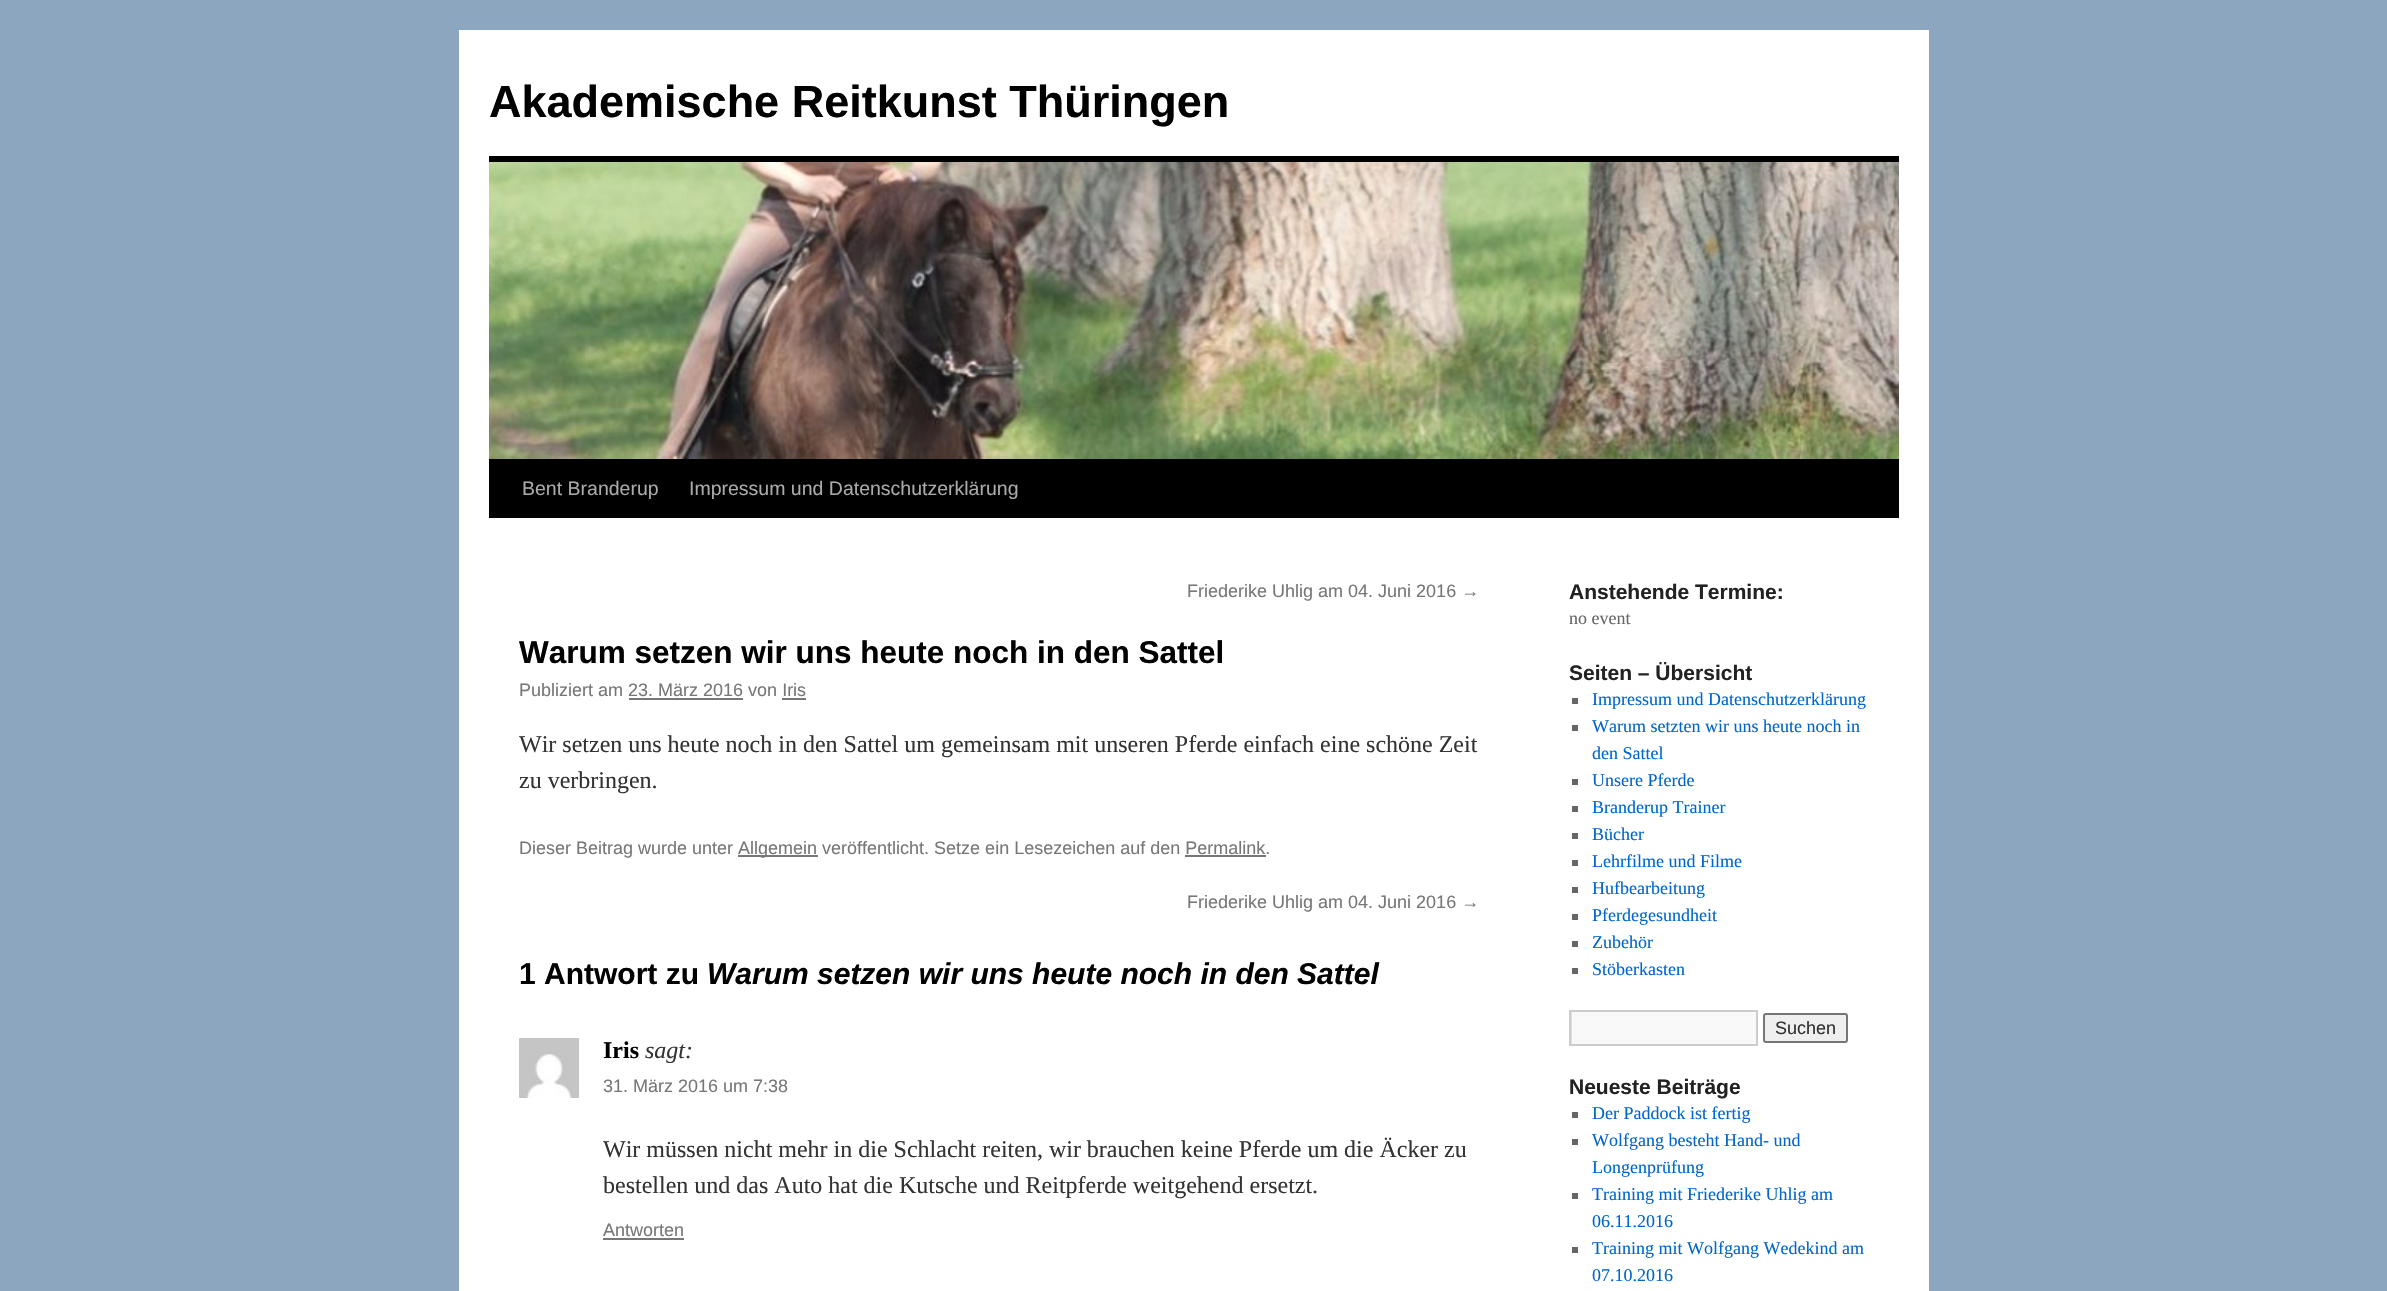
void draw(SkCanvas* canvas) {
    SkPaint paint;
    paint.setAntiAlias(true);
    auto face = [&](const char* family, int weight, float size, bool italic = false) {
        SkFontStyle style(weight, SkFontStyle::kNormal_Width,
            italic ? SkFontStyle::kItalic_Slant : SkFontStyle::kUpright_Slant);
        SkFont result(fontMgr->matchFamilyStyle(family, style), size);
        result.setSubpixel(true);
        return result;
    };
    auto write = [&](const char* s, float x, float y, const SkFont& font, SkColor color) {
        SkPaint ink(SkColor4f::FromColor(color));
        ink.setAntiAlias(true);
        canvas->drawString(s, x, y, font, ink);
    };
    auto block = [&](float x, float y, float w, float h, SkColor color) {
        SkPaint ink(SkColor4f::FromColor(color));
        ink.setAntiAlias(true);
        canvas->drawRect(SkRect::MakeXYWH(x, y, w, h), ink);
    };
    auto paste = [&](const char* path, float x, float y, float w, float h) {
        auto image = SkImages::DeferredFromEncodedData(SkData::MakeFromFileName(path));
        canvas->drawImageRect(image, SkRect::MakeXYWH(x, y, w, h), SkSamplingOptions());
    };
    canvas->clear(SkColorSetRGB(141, 166, 191));
    block(459, 30, 1470, 1261, SK_ColorWHITE);
    auto kFont1 = face("Liberation Sans", 700, 45);
    write("Akademische Reitkunst Thüringen", 489, 117, kFont1, SK_ColorBLACK);
    block(489, 156, 1410, 6, SK_ColorBLACK);
    block(489, 459, 1410, 59, SK_ColorBLACK);
    paste("pic1.png", 489, 162, 1410, 297);
    auto kFont2 = face("Liberation Sans", 400, 19.5f);
    write("Bent Branderup", 522, 495, kFont2, SkColorSetRGB(170, 170, 170));
    write("Impressum und Datenschutzerklärung", 689, 495, kFont2, SkColorSetRGB(170, 170, 170));
    auto kFont3 = face("Liberation Sans", 400, 18);
    write("Friederike Uhlig am 04. Juni 2016 →", 1187, 597, kFont3, SkColorSetRGB(119, 119, 119));
    auto kFont4 = face("Liberation Sans", 700, 31.5f);
    write("Warum setzen wir uns heute noch in den Sattel", 519, 663, kFont4, SK_ColorBLACK);
    write("Publiziert am 23. März 2016 von Iris", 519, 696, kFont3, SkColorSetRGB(119, 119, 119));
    block(629, 698, 114, 2, SkColorSetRGB(119, 119, 119));
    block(782, 698, 24, 2, SkColorSetRGB(119, 119, 119));
    auto kFont5 = face("Liberation Serif", 400, 24);
    write("Wir setzen uns heute noch in den Sattel um gemeinsam mit unseren Pferde einfach eine schöne Zeit", 519, 752, kFont5, SkColorSetRGB(51, 51, 51));
    write("zu verbringen.", 519, 788, kFont5, SkColorSetRGB(51, 51, 51));
    write("Dieser Beitrag wurde unter", 519, 854, kFont3, SkColorSetRGB(119, 119, 119));
    block(738, 855, 80, 2, SkColorSetRGB(119, 119, 119));
    write("Allgemein veröffentlicht. Setze ein Lesezeichen auf den Permalink.", 738, 854, kFont3, SkColorSetRGB(119, 119, 119));
    block(1185, 855, 81, 2, SkColorSetRGB(119, 119, 119));
    write("Friederike Uhlig am 04. Juni 2016 →", 1187, 908, kFont3, SkColorSetRGB(119, 119, 119));
    auto kFont6 = face("Liberation Sans", 700, 30);
    write("1 Antwort zu", 519, 984, kFont6, SK_ColorBLACK);
    auto kFont7 = face("Liberation Sans", 700, 30, true);
    write("Warum setzen wir uns heute noch in den Sattel", 707, 984, kFont7, SK_ColorBLACK);
    paste("pic2.png", 519, 1038, 60, 60);
    auto kFont8 = face("Liberation Serif", 700, 24);
    write("Iris", 603, 1058, kFont8, SK_ColorBLACK);
    auto kFont9 = face("Liberation Serif", 400, 24, true);
    write("sagt:", 645, 1058, kFont9, SkColorSetRGB(51, 51, 51));
    write("31. März 2016 um 7:38", 603, 1092, kFont3, SkColorSetRGB(119, 119, 119));
    write("Wir müssen nicht mehr in die Schlacht reiten, wir brauchen keine Pferde um die Äcker zu", 603, 1157, kFont5, SkColorSetRGB(51, 51, 51));
    write("bestellen und das Auto hat die Kutsche und Reitpferde weitgehend ersetzt.", 603, 1193, kFont5, SkColorSetRGB(51, 51, 51));
    write("Antworten", 603, 1236, kFont3, SkColorSetRGB(119, 119, 119));
    block(603, 1238, 81, 2, SkColorSetRGB(119, 119, 119));
    auto kFont10 = face("Liberation Sans", 700, 21);
    write("Anstehende Termine:", 1569, 599, kFont10, SkColorSetRGB(34, 34, 34));
    auto kFont11 = face("Liberation Serif", 400, 18);
    write("no event", 1569, 624, kFont11, SkColorSetRGB(102, 102, 102));
    write("Seiten – Übersicht", 1569, 680, kFont10, SkColorSetRGB(34, 34, 34));
    block(1572, 698, 6, 6, SkColorSetRGB(102, 102, 102));
    write("Impressum und Datenschutzerklärung", 1592, 705, kFont11, SkColorSetRGB(0, 102, 204));
    block(1572, 725, 6, 6, SkColorSetRGB(102, 102, 102));
    write("Warum setzten wir uns heute noch in", 1592, 732, kFont11, SkColorSetRGB(0, 102, 204));
    write("den Sattel", 1592, 759, kFont11, SkColorSetRGB(0, 102, 204));
    block(1572, 779, 6, 6, SkColorSetRGB(102, 102, 102));
    write("Unsere Pferde", 1592, 786, kFont11, SkColorSetRGB(0, 102, 204));
    block(1572, 806, 6, 6, SkColorSetRGB(102, 102, 102));
    write("Branderup Trainer", 1592, 813, kFont11, SkColorSetRGB(0, 102, 204));
    block(1572, 833, 6, 6, SkColorSetRGB(102, 102, 102));
    write("Bücher", 1592, 840, kFont11, SkColorSetRGB(0, 102, 204));
    block(1572, 860, 6, 6, SkColorSetRGB(102, 102, 102));
    write("Lehrfilme und Filme", 1592, 867, kFont11, SkColorSetRGB(0, 102, 204));
    block(1572, 887, 6, 6, SkColorSetRGB(102, 102, 102));
    write("Hufbearbeitung", 1592, 894, kFont11, SkColorSetRGB(0, 102, 204));
    block(1572, 914, 6, 6, SkColorSetRGB(102, 102, 102));
    write("Pferdegesundheit", 1592, 921, kFont11, SkColorSetRGB(0, 102, 204));
    block(1572, 941, 6, 6, SkColorSetRGB(102, 102, 102));
    write("Zubehör", 1592, 948, kFont11, SkColorSetRGB(0, 102, 204));
    block(1572, 968, 6, 6, SkColorSetRGB(102, 102, 102));
    write("Stöberkasten", 1592, 975, kFont11, SkColorSetRGB(0, 102, 204));
    block(1572, 1012, 184, 32, SkColorSetRGB(249, 249, 249));
    canvas->save();
    canvas->clipRect(SkRect::MakeXYWH(1571, 1011, 186, 33));
    paint.setColor(SkColorSetRGB(224, 224, 224));
    canvas->drawPath(SkPathBuilder(SkPathFillType::kEvenOdd).moveTo(1422, 862).lineTo(1905, 862).lineTo(1905, 1192).lineTo(1422, 1192).close().moveTo(1572, 1012).lineTo(1758, 1012).lineTo(1758, 1046).lineTo(1572, 1046).close().detach(), paint);
    canvas->restore();
    paint.setStyle(SkPaint::kStroke_Style);
    paint.setStrokeWidth(2);
    paint.setColor(SkColorSetRGB(204, 204, 204));
    canvas->drawRect(SkRect::MakeXYWH(1570, 1011, 187, 34), paint);
    paint.setStyle(SkPaint::kFill_Style);
    paint.setColor(SkColorSetRGB(239, 239, 239));
    canvas->drawRoundRect(SkRect::MakeXYWH(1764, 1014, 83, 28), 2, 2, paint);
    paint.setStyle(SkPaint::kStroke_Style);
    paint.setColor(SkColorSetRGB(118, 118, 118));
    canvas->drawRoundRect(SkRect::MakeXYWH(1764, 1014, 83, 28), 2, 2, paint);
    write("Suchen", 1775, 1034, kFont3, SkColorSetRGB(51, 51, 51));
    write("Neueste Beiträge", 1569, 1094, kFont10, SkColorSetRGB(34, 34, 34));
    block(1572, 1112, 6, 6, SkColorSetRGB(102, 102, 102));
    write("Der Paddock ist fertig", 1592, 1119, kFont11, SkColorSetRGB(0, 102, 204));
    block(1572, 1139, 6, 6, SkColorSetRGB(102, 102, 102));
    write("Wolfgang besteht Hand- und", 1592, 1146, kFont11, SkColorSetRGB(0, 102, 204));
    write("Longenprüfung", 1592, 1173, kFont11, SkColorSetRGB(0, 102, 204));
    block(1572, 1193, 6, 6, SkColorSetRGB(102, 102, 102));
    write("Training mit Friederike Uhlig am", 1592, 1200, kFont11, SkColorSetRGB(0, 102, 204));
    write("06.11.2016", 1592, 1227, kFont11, SkColorSetRGB(0, 102, 204));
    block(1572, 1247, 6, 6, SkColorSetRGB(102, 102, 102));
    write("Training mit Wolfgang Wedekind am", 1592, 1254, kFont11, SkColorSetRGB(0, 102, 204));
    write("07.10.2016", 1592, 1281, kFont11, SkColorSetRGB(0, 102, 204));
}
